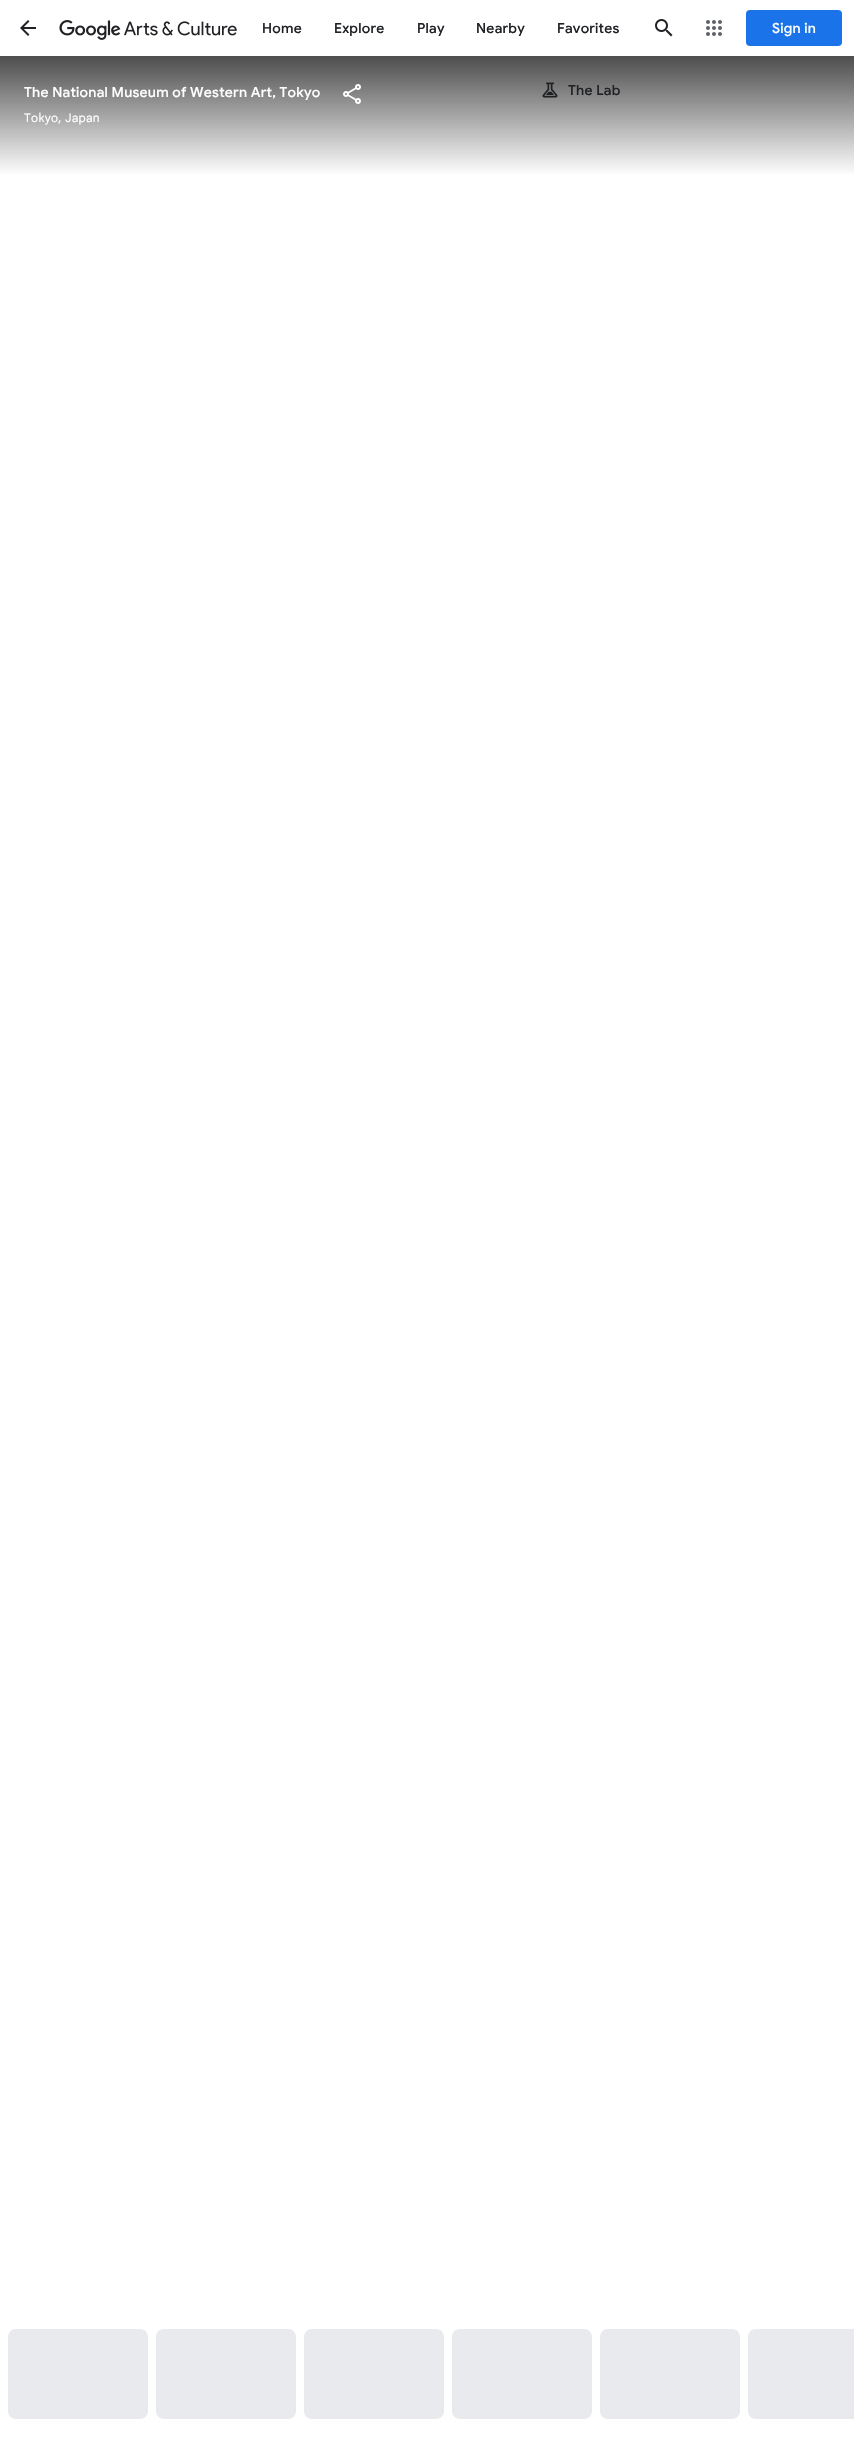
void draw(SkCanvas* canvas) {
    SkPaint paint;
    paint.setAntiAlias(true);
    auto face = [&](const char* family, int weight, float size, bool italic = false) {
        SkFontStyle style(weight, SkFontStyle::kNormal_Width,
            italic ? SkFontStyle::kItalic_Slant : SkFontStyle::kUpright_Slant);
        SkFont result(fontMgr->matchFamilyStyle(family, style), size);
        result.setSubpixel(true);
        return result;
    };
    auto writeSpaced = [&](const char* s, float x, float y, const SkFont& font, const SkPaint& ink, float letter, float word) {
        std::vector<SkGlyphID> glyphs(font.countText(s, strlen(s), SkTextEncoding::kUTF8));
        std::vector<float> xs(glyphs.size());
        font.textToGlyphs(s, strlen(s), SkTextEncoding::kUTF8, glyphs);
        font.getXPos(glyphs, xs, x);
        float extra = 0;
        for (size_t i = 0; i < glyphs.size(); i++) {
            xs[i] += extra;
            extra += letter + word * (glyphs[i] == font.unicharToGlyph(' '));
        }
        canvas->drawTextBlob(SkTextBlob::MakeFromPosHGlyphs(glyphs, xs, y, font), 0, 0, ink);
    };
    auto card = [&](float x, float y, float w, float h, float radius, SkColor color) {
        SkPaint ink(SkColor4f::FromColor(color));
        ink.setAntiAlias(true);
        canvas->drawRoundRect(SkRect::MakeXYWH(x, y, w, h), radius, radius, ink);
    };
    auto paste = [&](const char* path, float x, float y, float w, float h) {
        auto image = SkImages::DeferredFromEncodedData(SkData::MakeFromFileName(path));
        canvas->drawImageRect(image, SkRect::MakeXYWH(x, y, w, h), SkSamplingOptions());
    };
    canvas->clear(SK_ColorWHITE);
    paste("pic1.png", 20, 20, 16, 16);
    paste("pic2.png", 59, 20, 178, 20);
    auto kFont1 = face("Google Sans", 500, 14);
    paint.setColor(SkColorSetRGB(32, 33, 36));
    writeSpaced("Home", 262, 33, kFont1, paint, 0.25f, 0);
    writeSpaced("Explore", 334, 33, kFont1, paint, 0.25f, 0);
    writeSpaced("Play", 417, 33, kFont1, paint, 0.25f, 0);
    writeSpaced("Nearby", 476, 33, kFont1, paint, 0.25f, 0);
    writeSpaced("Favorites", 557, 33, kFont1, paint, 0.25f, 0);
    {
        const SkColor colors[] = {SkColorSetRGB(77, 77, 77), SK_ColorWHITE};
        const float stops[] = {0, 1};
        const SkPoint ends[] = {{427, 56}, {427, 176}};
        paint.setShader(SkGradientShader::MakeLinear(ends, colors, stops, 2, SkTileMode::kClamp));
        paint.setAlpha(255);
    }
    canvas->drawRect(SkRect::MakeXYWH(0, 56, 854, 118), paint);
    paste("pic3.png", 542, 82, 16, 16);
    paint.setShader(nullptr);
    paint.setColor(SkColorSetRGB(32, 33, 36));
    writeSpaced("The Lab", 568, 95, kFont1, paint, 0.25f, 0);
    paste("pic4.png", 655, 19, 18, 18);
    paste("pic5.png", 706, 20, 16, 16);
    card(746, 10, 96, 36, 4, SkColorSetRGB(26, 115, 232));
    paint.setColor(SK_ColorWHITE);
    writeSpaced("Sign in", 772, 33, kFont1, paint, 0.25f, 0);
    writeSpaced("The National Museum of Western Art, Tokyo", 24, 97, kFont1, paint, 0.25f, 0);
    paste("pic6.png", 343, 84, 18, 20);
    auto kFont2 = face("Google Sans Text", 400, 12);
    writeSpaced("Tokyo, Japan", 24, 122, kFont2, paint, 0.25f, 0);
    card(8, 2329, 140, 90, 8, SkColorSetRGB(232, 234, 237));
    card(156, 2329, 140, 90, 8, SkColorSetRGB(232, 234, 237));
    card(304, 2329, 140, 90, 8, SkColorSetRGB(232, 234, 237));
    card(452, 2329, 140, 90, 8, SkColorSetRGB(232, 234, 237));
    card(600, 2329, 140, 90, 8, SkColorSetRGB(232, 234, 237));
    paint.setColor(SkColorSetRGB(232, 234, 237));
    canvas->drawPath(SkPathBuilder().moveTo(756, 2329).lineTo(854, 2329).lineTo(854, 2419).lineTo(756, 2419).cubicTo(751.5f, 2419, 748, 2415.5f, 748, 2411).lineTo(748, 2337).cubicTo(748, 2332.5f, 751.5f, 2329, 756, 2329).close().detach(), paint);
}
